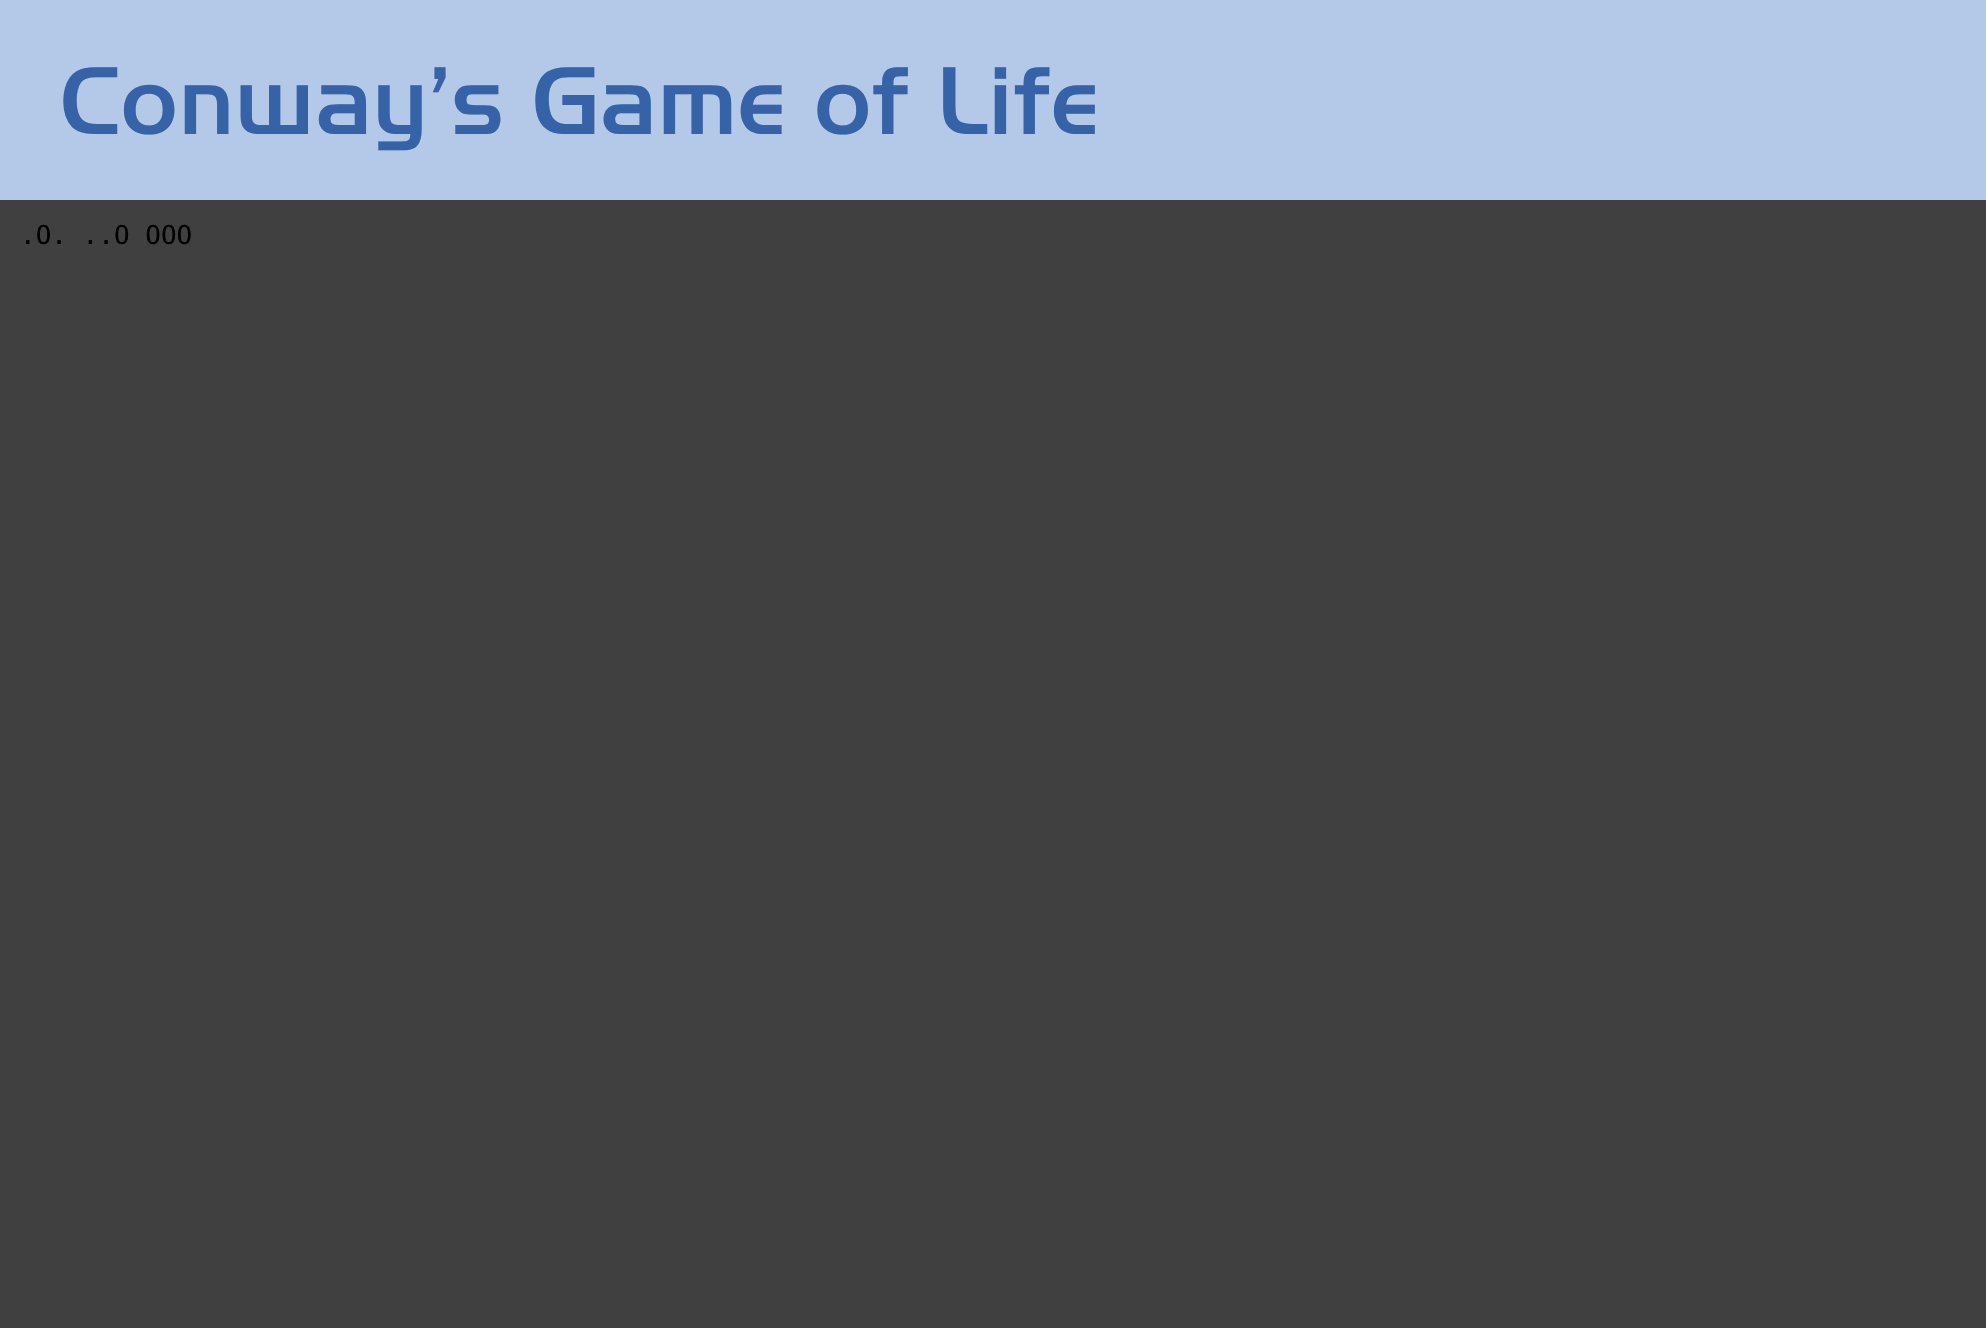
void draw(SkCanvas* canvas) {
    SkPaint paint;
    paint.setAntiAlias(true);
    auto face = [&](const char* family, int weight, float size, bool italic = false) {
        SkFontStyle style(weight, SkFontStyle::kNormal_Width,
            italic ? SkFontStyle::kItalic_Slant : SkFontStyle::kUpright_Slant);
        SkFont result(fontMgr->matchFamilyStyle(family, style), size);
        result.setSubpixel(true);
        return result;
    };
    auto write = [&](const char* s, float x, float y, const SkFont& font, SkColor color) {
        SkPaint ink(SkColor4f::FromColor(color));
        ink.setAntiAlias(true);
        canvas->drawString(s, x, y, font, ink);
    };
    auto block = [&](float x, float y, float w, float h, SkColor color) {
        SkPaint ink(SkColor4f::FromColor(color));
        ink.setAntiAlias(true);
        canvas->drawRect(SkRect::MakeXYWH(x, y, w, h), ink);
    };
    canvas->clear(SkColorSetRGB(180, 200, 231));
    auto kFont1 = face("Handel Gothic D", 500, 100);
    write("Conway’s", 60, 134, kFont1, SkColorSetRGB(54, 99, 168));
    write("Game", 532, 134, kFont1, SkColorSetRGB(54, 99, 168));
    write("of", 814, 134, kFont1, SkColorSetRGB(54, 99, 168));
    write("Life", 937, 134, kFont1, SkColorSetRGB(54, 99, 168));
    block(0, 200, 1986, 1128, SkColorSetRGB(64, 64, 64));
    auto kFont2 = face("DejaVu Sans Mono", 400, 26);
    write(".O. ..O OOO", 20, 244, kFont2, SK_ColorBLACK);
}
